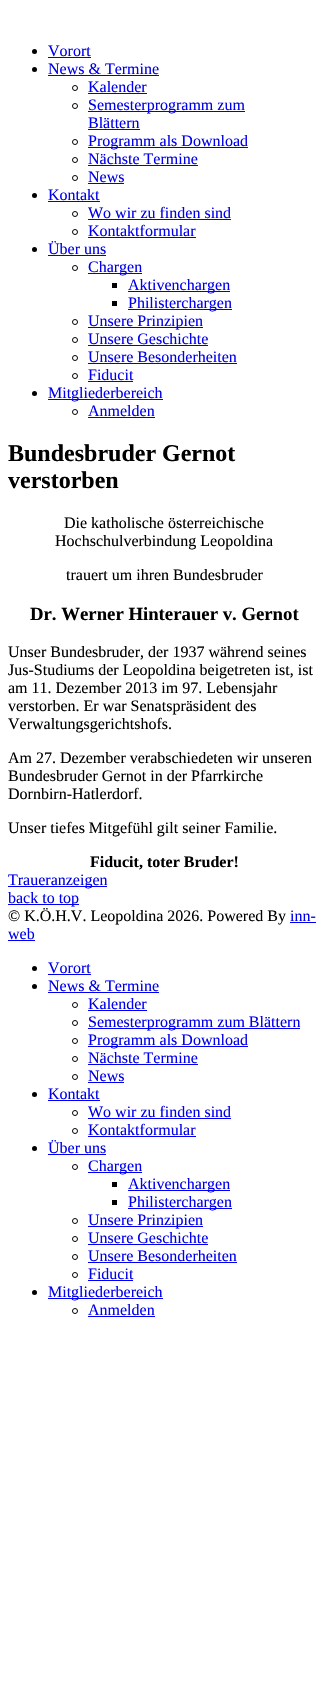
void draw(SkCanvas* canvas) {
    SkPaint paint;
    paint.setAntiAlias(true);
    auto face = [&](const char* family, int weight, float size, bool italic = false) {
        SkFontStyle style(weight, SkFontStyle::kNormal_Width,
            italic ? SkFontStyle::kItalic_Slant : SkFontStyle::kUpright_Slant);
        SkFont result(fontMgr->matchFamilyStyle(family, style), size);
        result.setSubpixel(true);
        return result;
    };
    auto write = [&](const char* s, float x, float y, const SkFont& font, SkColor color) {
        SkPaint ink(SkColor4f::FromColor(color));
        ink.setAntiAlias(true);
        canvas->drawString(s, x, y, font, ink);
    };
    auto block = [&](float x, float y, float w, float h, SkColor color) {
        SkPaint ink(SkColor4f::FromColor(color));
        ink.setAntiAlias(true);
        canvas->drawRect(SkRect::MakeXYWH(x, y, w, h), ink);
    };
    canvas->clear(SK_ColorWHITE);
    paint.setColor(SK_ColorBLACK);
    canvas->drawCircle(34.5f, 51.5f, 2.5f, paint);
    auto kFont1 = face("Liberation Serif", 400, 16);
    write("Vorort", 48, 56, kFont1, SkColorSetRGB(0, 0, 238));
    block(48, 57, 43, 1, SkColorSetRGB(0, 0, 238));
    canvas->drawCircle(34.5f, 69.5f, 2.5f, paint);
    write("News & Termine", 48, 74, kFont1, SkColorSetRGB(0, 0, 238));
    block(48, 75, 111, 1, SkColorSetRGB(0, 0, 238));
    paint.setStyle(SkPaint::kStroke_Style);
    paint.setStrokeWidth(1);
    canvas->drawCircle(75, 88, 2.5f, paint);
    write("Kalender", 88, 92, kFont1, SkColorSetRGB(0, 0, 238));
    block(88, 93, 59, 1, SkColorSetRGB(0, 0, 238));
    canvas->drawCircle(75, 106, 2.5f, paint);
    block(88, 111, 157, 1, SkColorSetRGB(0, 0, 238));
    write("Semesterprogramm zum", 88, 110, kFont1, SkColorSetRGB(0, 0, 238));
    write("Blättern", 88, 128, kFont1, SkColorSetRGB(0, 0, 238));
    block(88, 129, 52, 1, SkColorSetRGB(0, 0, 238));
    canvas->drawCircle(75, 142, 2.5f, paint);
    block(88, 147, 160, 1, SkColorSetRGB(0, 0, 238));
    write("Programm als Download", 88, 146, kFont1, SkColorSetRGB(0, 0, 238));
    canvas->drawCircle(75, 160, 2.5f, paint);
    write("Nächste Termine", 88, 164, kFont1, SkColorSetRGB(0, 0, 238));
    block(88, 165, 110, 1, SkColorSetRGB(0, 0, 238));
    canvas->drawCircle(75, 178, 2.5f, paint);
    write("News", 88, 182, kFont1, SkColorSetRGB(0, 0, 238));
    block(88, 183, 36, 1, SkColorSetRGB(0, 0, 238));
    paint.setStyle(SkPaint::kFill_Style);
    canvas->drawCircle(34.5f, 195.5f, 2.5f, paint);
    write("Kontakt", 48, 200, kFont1, SkColorSetRGB(0, 0, 238));
    block(48, 201, 52, 1, SkColorSetRGB(0, 0, 238));
    paint.setStyle(SkPaint::kStroke_Style);
    canvas->drawCircle(75, 214, 2.5f, paint);
    write("Wo wir zu finden sind", 88, 218, kFont1, SkColorSetRGB(0, 0, 238));
    block(88, 219, 143, 1, SkColorSetRGB(0, 0, 238));
    canvas->drawCircle(75, 232, 2.5f, paint);
    write("Kontaktformular", 88, 236, kFont1, SkColorSetRGB(0, 0, 238));
    block(88, 237, 108, 1, SkColorSetRGB(0, 0, 238));
    paint.setStyle(SkPaint::kFill_Style);
    canvas->drawCircle(34.5f, 249.5f, 2.5f, paint);
    write("Über uns", 48, 254, kFont1, SkColorSetRGB(0, 0, 238));
    block(48, 255, 58, 1, SkColorSetRGB(0, 0, 238));
    paint.setStyle(SkPaint::kStroke_Style);
    canvas->drawCircle(75, 268, 2.5f, paint);
    block(88, 273, 54, 1, SkColorSetRGB(0, 0, 238));
    write("Chargen", 88, 272, kFont1, SkColorSetRGB(0, 0, 238));
    block(112, 283, 5, 5, SK_ColorBLACK);
    block(128, 291, 102, 1, SkColorSetRGB(0, 0, 238));
    write("Aktivenchargen", 128, 290, kFont1, SkColorSetRGB(0, 0, 238));
    block(112, 301, 5, 5, SK_ColorBLACK);
    block(128, 309, 104, 1, SkColorSetRGB(0, 0, 238));
    write("Philisterchargen", 128, 308, kFont1, SkColorSetRGB(0, 0, 238));
    canvas->drawCircle(75, 322, 2.5f, paint);
    block(88, 327, 115, 1, SkColorSetRGB(0, 0, 238));
    write("Unsere Prinzipien", 88, 326, kFont1, SkColorSetRGB(0, 0, 238));
    canvas->drawCircle(75, 340, 2.5f, paint);
    write("Unsere Geschichte", 88, 344, kFont1, SkColorSetRGB(0, 0, 238));
    block(88, 345, 120, 1, SkColorSetRGB(0, 0, 238));
    canvas->drawCircle(75, 358, 2.5f, paint);
    write("Unsere Besonderheiten", 88, 362, kFont1, SkColorSetRGB(0, 0, 238));
    block(88, 363, 149, 1, SkColorSetRGB(0, 0, 238));
    canvas->drawCircle(75, 376, 2.5f, paint);
    write("Fiducit", 88, 380, kFont1, SkColorSetRGB(0, 0, 238));
    block(88, 381, 45, 1, SkColorSetRGB(0, 0, 238));
    paint.setStyle(SkPaint::kFill_Style);
    canvas->drawCircle(34.5f, 393.5f, 2.5f, paint);
    block(48, 399, 115, 1, SkColorSetRGB(0, 0, 238));
    write("Mitgliederbereich", 48, 398, kFont1, SkColorSetRGB(0, 0, 238));
    paint.setStyle(SkPaint::kStroke_Style);
    canvas->drawCircle(75, 412, 2.5f, paint);
    write("Anmelden", 88, 416, kFont1, SkColorSetRGB(0, 0, 238));
    block(88, 417, 67, 1, SkColorSetRGB(0, 0, 238));
    auto kFont2 = face("Liberation Serif", 700, 24);
    write("Bundesbruder Gernot", 8, 461, kFont2, SK_ColorBLACK);
    write("verstorben", 8, 488, kFont2, SK_ColorBLACK);
    write("Die katholische österreichische", 64, 528, kFont1, SK_ColorBLACK);
    write("Hochschulverbindung Leopoldina", 55, 546, kFont1, SK_ColorBLACK);
    write("trauert um ihren Bundesbruder", 66, 580, kFont1, SK_ColorBLACK);
    auto kFont3 = face("Liberation Serif", 700, 18.75f);
    write("Dr. Werner Hinterauer v. Gernot", 30, 620, kFont3, SK_ColorBLACK);
    write("Unser Bundesbruder, der 1937 während seines", 8, 657, kFont1, SK_ColorBLACK);
    write("Jus-Studiums der Leopoldina beigetreten ist, ist", 8, 675, kFont1, SK_ColorBLACK);
    write("am 11. Dezember 2013 im 97. Lebensjahr", 8, 693, kFont1, SK_ColorBLACK);
    write("verstorben. Er war Senatspräsident des", 8, 711, kFont1, SK_ColorBLACK);
    write("Verwaltungsgerichtshofs.", 8, 729, kFont1, SK_ColorBLACK);
    write("Am 27. Dezember verabschiedeten wir unseren", 8, 763, kFont1, SK_ColorBLACK);
    write("Bundesbruder Gernot in der Pfarrkirche", 8, 781, kFont1, SK_ColorBLACK);
    write("Dornbirn-Hatlerdorf.", 8, 799, kFont1, SK_ColorBLACK);
    write("Unser tiefes Mitgefühl gilt seiner Familie.", 8, 833, kFont1, SK_ColorBLACK);
    auto kFont4 = face("Liberation Serif", 700, 16);
    write("Fiducit, toter Bruder!", 90, 867, kFont4, SK_ColorBLACK);
    block(8, 886, 99, 1, SkColorSetRGB(0, 0, 238));
    write("Traueranzeigen", 8, 885, kFont1, SkColorSetRGB(0, 0, 238));
    block(8, 904, 71, 1, SkColorSetRGB(0, 0, 238));
    write("back to top", 8, 903, kFont1, SkColorSetRGB(0, 0, 238));
    write("© K.Ö.H.V. Leopoldina 2026. Powered By", 8, 921, kFont1, SK_ColorBLACK);
    write("inn-", 290, 921, kFont1, SkColorSetRGB(0, 0, 238));
    block(290, 922, 26, 1, SkColorSetRGB(0, 0, 238));
    write("web", 8, 939, kFont1, SkColorSetRGB(0, 0, 238));
    block(8, 940, 27, 1, SkColorSetRGB(0, 0, 238));
    paint.setStyle(SkPaint::kFill_Style);
    canvas->drawCircle(34.5f, 968.5f, 2.5f, paint);
    write("Vorort", 48, 973, kFont1, SkColorSetRGB(0, 0, 238));
    block(48, 974, 43, 1, SkColorSetRGB(0, 0, 238));
    canvas->drawCircle(34.5f, 986.5f, 2.5f, paint);
    write("News & Termine", 48, 991, kFont1, SkColorSetRGB(0, 0, 238));
    block(48, 992, 111, 1, SkColorSetRGB(0, 0, 238));
    paint.setStyle(SkPaint::kStroke_Style);
    canvas->drawCircle(75, 1005, 2.5f, paint);
    write("Kalender", 88, 1009, kFont1, SkColorSetRGB(0, 0, 238));
    block(88, 1010, 59, 1, SkColorSetRGB(0, 0, 238));
    canvas->drawCircle(75, 1023, 2.5f, paint);
    block(88, 1028, 212, 1, SkColorSetRGB(0, 0, 238));
    write("Semesterprogramm zum Blättern", 88, 1027, kFont1, SkColorSetRGB(0, 0, 238));
    canvas->drawCircle(75, 1041, 2.5f, paint);
    block(88, 1046, 160, 1, SkColorSetRGB(0, 0, 238));
    write("Programm als Download", 88, 1045, kFont1, SkColorSetRGB(0, 0, 238));
    canvas->drawCircle(75, 1059, 2.5f, paint);
    write("Nächste Termine", 88, 1063, kFont1, SkColorSetRGB(0, 0, 238));
    block(88, 1064, 110, 1, SkColorSetRGB(0, 0, 238));
    canvas->drawCircle(75, 1077, 2.5f, paint);
    write("News", 88, 1081, kFont1, SkColorSetRGB(0, 0, 238));
    block(88, 1082, 36, 1, SkColorSetRGB(0, 0, 238));
    paint.setStyle(SkPaint::kFill_Style);
    canvas->drawCircle(34.5f, 1094.5f, 2.5f, paint);
    write("Kontakt", 48, 1099, kFont1, SkColorSetRGB(0, 0, 238));
    block(48, 1100, 52, 1, SkColorSetRGB(0, 0, 238));
    paint.setStyle(SkPaint::kStroke_Style);
    canvas->drawCircle(75, 1113, 2.5f, paint);
    write("Wo wir zu finden sind", 88, 1117, kFont1, SkColorSetRGB(0, 0, 238));
    block(88, 1118, 143, 1, SkColorSetRGB(0, 0, 238));
    canvas->drawCircle(75, 1131, 2.5f, paint);
    write("Kontaktformular", 88, 1135, kFont1, SkColorSetRGB(0, 0, 238));
    block(88, 1136, 108, 1, SkColorSetRGB(0, 0, 238));
    paint.setStyle(SkPaint::kFill_Style);
    canvas->drawCircle(34.5f, 1148.5f, 2.5f, paint);
    write("Über uns", 48, 1153, kFont1, SkColorSetRGB(0, 0, 238));
    block(48, 1154, 58, 1, SkColorSetRGB(0, 0, 238));
    paint.setStyle(SkPaint::kStroke_Style);
    canvas->drawCircle(75, 1167, 2.5f, paint);
    block(88, 1172, 54, 1, SkColorSetRGB(0, 0, 238));
    write("Chargen", 88, 1171, kFont1, SkColorSetRGB(0, 0, 238));
    block(112, 1182, 5, 5, SK_ColorBLACK);
    block(128, 1190, 102, 1, SkColorSetRGB(0, 0, 238));
    write("Aktivenchargen", 128, 1189, kFont1, SkColorSetRGB(0, 0, 238));
    block(112, 1200, 5, 5, SK_ColorBLACK);
    block(128, 1208, 104, 1, SkColorSetRGB(0, 0, 238));
    write("Philisterchargen", 128, 1207, kFont1, SkColorSetRGB(0, 0, 238));
    canvas->drawCircle(75, 1221, 2.5f, paint);
    block(88, 1226, 115, 1, SkColorSetRGB(0, 0, 238));
    write("Unsere Prinzipien", 88, 1225, kFont1, SkColorSetRGB(0, 0, 238));
    canvas->drawCircle(75, 1239, 2.5f, paint);
    write("Unsere Geschichte", 88, 1243, kFont1, SkColorSetRGB(0, 0, 238));
    block(88, 1244, 120, 1, SkColorSetRGB(0, 0, 238));
    canvas->drawCircle(75, 1257, 2.5f, paint);
    write("Unsere Besonderheiten", 88, 1261, kFont1, SkColorSetRGB(0, 0, 238));
    block(88, 1262, 149, 1, SkColorSetRGB(0, 0, 238));
    canvas->drawCircle(75, 1275, 2.5f, paint);
    write("Fiducit", 88, 1279, kFont1, SkColorSetRGB(0, 0, 238));
    block(88, 1280, 45, 1, SkColorSetRGB(0, 0, 238));
    paint.setStyle(SkPaint::kFill_Style);
    canvas->drawCircle(34.5f, 1292.5f, 2.5f, paint);
    block(48, 1298, 115, 1, SkColorSetRGB(0, 0, 238));
    write("Mitgliederbereich", 48, 1297, kFont1, SkColorSetRGB(0, 0, 238));
    paint.setStyle(SkPaint::kStroke_Style);
    canvas->drawCircle(75, 1311, 2.5f, paint);
    write("Anmelden", 88, 1315, kFont1, SkColorSetRGB(0, 0, 238));
    block(88, 1316, 67, 1, SkColorSetRGB(0, 0, 238));
}
